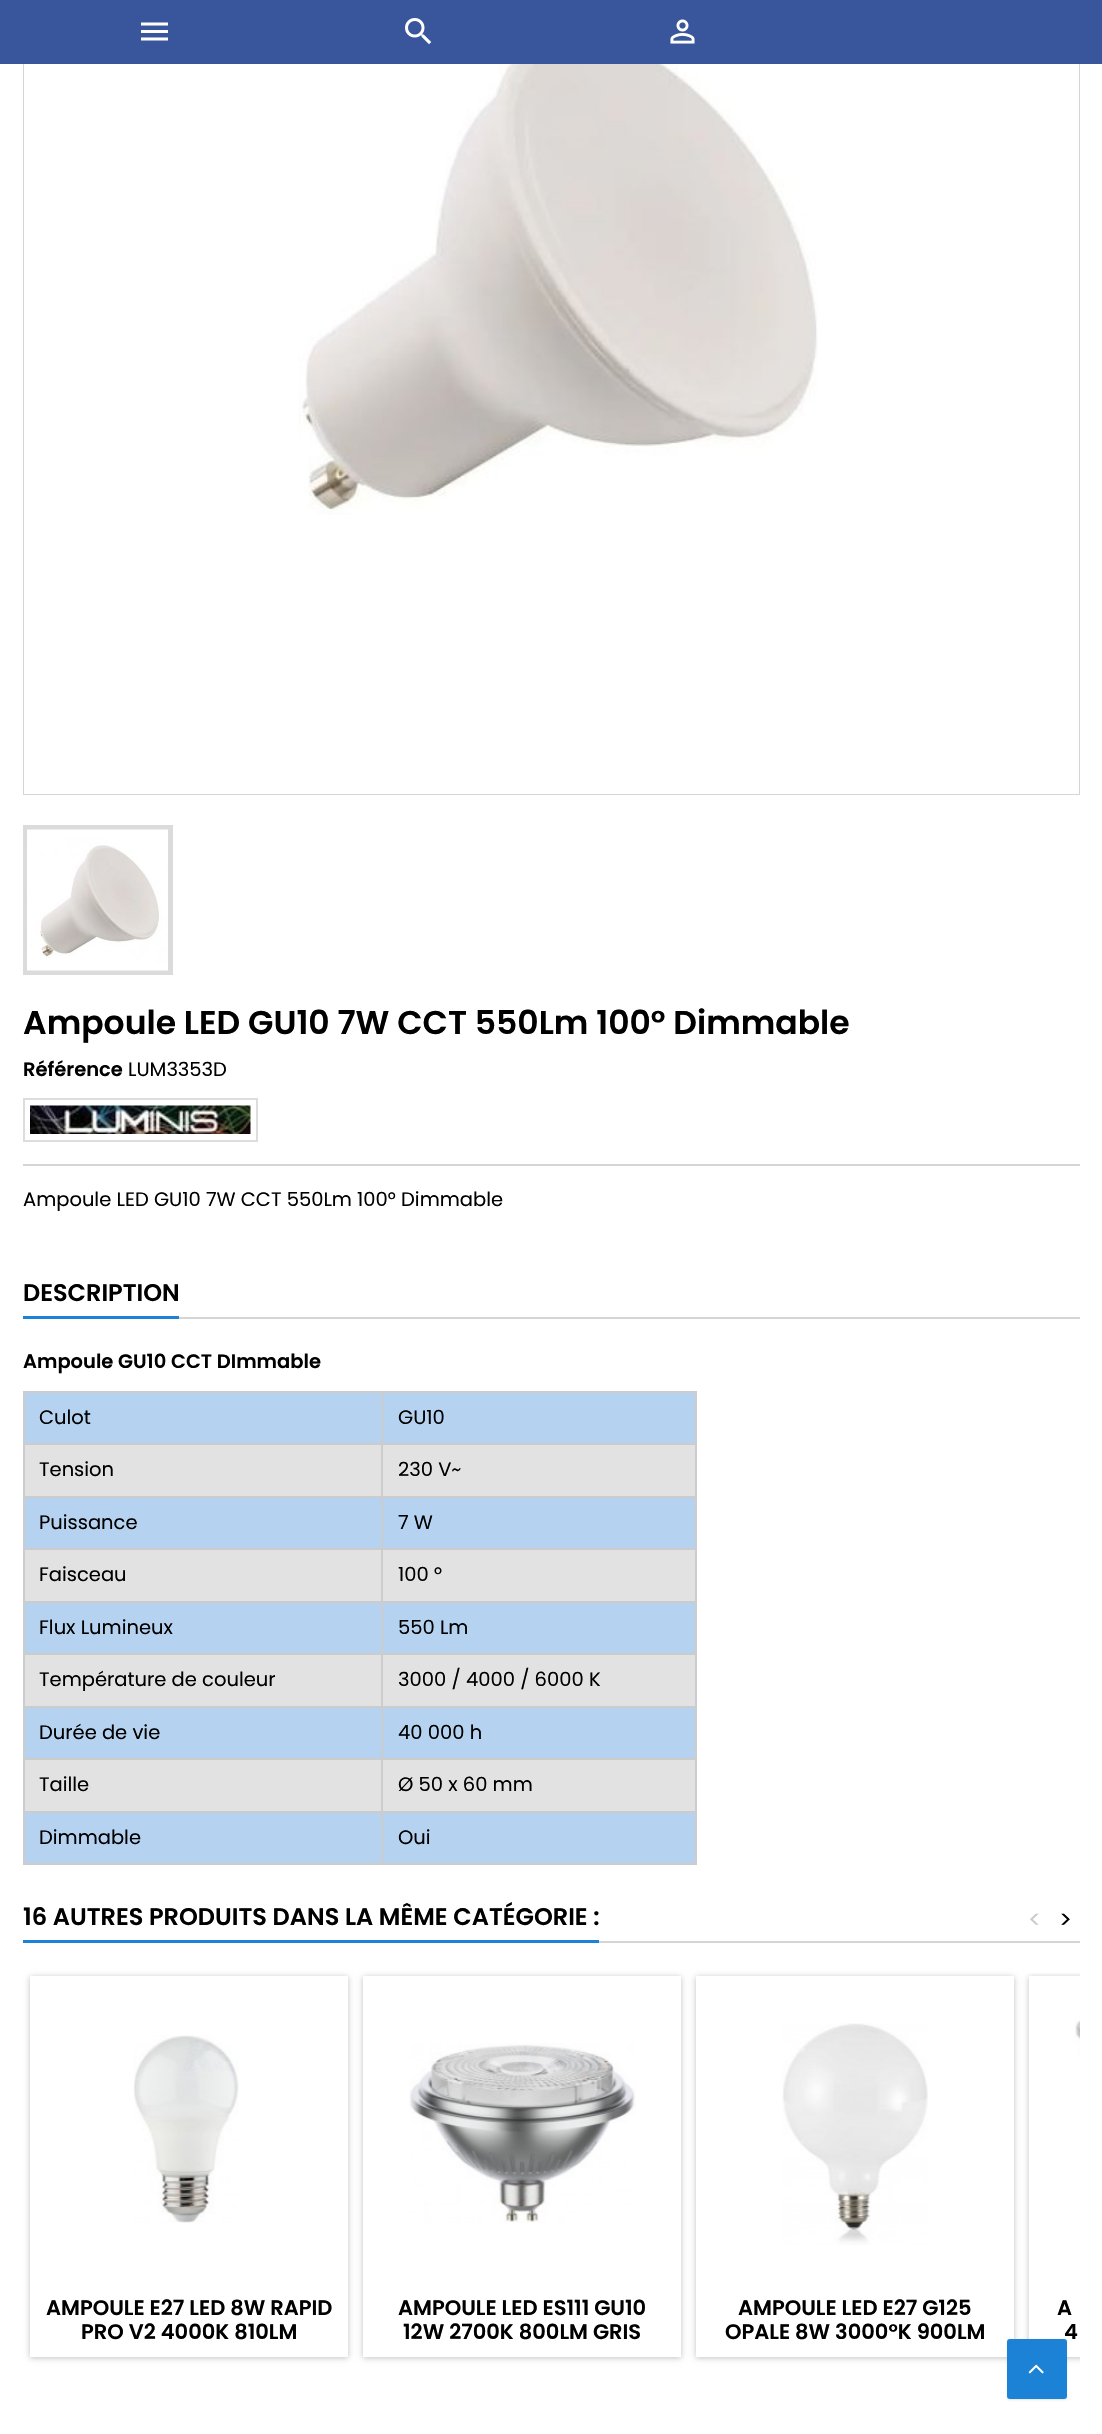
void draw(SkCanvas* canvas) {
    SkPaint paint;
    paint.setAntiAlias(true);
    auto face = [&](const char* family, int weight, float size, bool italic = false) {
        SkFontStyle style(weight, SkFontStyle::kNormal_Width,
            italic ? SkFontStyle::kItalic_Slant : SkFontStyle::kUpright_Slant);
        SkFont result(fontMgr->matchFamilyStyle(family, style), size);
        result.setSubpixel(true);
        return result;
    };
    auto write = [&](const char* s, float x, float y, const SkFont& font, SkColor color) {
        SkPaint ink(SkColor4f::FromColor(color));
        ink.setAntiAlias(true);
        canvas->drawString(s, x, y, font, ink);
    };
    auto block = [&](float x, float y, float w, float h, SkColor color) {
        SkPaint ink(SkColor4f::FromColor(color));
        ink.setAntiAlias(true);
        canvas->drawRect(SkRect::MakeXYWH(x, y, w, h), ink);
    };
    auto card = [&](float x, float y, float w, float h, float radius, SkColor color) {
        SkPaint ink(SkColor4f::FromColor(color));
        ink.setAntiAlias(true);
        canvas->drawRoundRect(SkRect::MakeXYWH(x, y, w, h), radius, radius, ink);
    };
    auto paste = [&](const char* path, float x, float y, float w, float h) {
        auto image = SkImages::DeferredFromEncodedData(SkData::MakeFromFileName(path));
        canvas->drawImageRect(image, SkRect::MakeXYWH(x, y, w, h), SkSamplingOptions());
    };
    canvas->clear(SK_ColorWHITE);
    paint.setStyle(SkPaint::kStroke_Style);
    paint.setStrokeWidth(2);
    paint.setColor(SkColorSetRGB(214, 212, 212));
    canvas->drawRect(SkRect::MakeXYWH(24, -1, 1055, 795), paint);
    block(0, 0, 1102, 64, SkColorSetRGB(57, 86, 157));
    paste("pic1.png", 141, 22, 27, 19);
    paste("pic2.png", 405, 18, 27, 27);
    paste("pic3.png", 670, 19, 25, 25);
    block(24, 64, 1055, 730, SK_ColorWHITE);
    paste("pic4.png", 298, 64, 520, 451);
    paint.setStrokeWidth(5);
    paint.setColor(SkColorSetRGB(219, 219, 219));
    canvas->drawRect(SkRect::MakeXYWH(25.5f, 827.5f, 145, 145), paint);
    paste("pic5.png", 27, 829, 141, 142);
    auto kFont1 = face("Poppins", 600, 33);
    write("Ampoule LED GU10 7W CCT 550Lm 100° Dimmable", 23, 1034, kFont1, SK_ColorBLACK);
    auto kFont2 = face("Poppins", 600, 19.5f);
    write("Référence", 23, 1076, kFont2, SK_ColorBLACK);
    auto kFont3 = face("Poppins", 400, 19.5f);
    write("LUM3353D", 128, 1076, kFont3, SK_ColorBLACK);
    paint.setStrokeWidth(2);
    paint.setColor(SkColorSetRGB(221, 221, 221));
    canvas->drawRect(SkRect::MakeXYWH(24, 1099, 233, 42), paint);
    paste("pic6.png", 30, 1105, 221, 29);
    block(23, 1164, 1057, 2, SkColorSetRGB(214, 212, 212));
    write("Ampoule LED GU10 7W CCT 550Lm 100° Dimmable", 23, 1206, kFont3, SK_ColorBLACK);
    block(179, 1317, 901, 2, SkColorSetRGB(214, 212, 212));
    block(23, 1316, 156, 3, SkColorSetRGB(27, 130, 214));
    auto kFont4 = face("Poppins", 600, 24);
    write("DESCRIPTION", 23, 1301, kFont4, SK_ColorBLACK);
    write("Ampoule GU10 CCT DImmable", 23, 1368, kFont2, SK_ColorBLACK);
    block(23, 1391, 673, 2, SkColorSetRGB(204, 204, 204));
    block(695, 1391, 2, 474, SkColorSetRGB(204, 204, 204));
    block(23, 1863, 673, 2, SkColorSetRGB(204, 204, 204));
    block(23, 1391, 2, 474, SkColorSetRGB(204, 204, 204));
    block(25, 1393, 670, 50, SkColorSetRGB(181, 211, 241));
    block(23, 1443, 673, 2, SkColorSetRGB(204, 204, 204));
    write("Culot", 39, 1424, kFont3, SK_ColorBLACK);
    write("GU10", 398, 1424, kFont3, SK_ColorBLACK);
    block(25, 1445, 670, 51, SkColorSetRGB(226, 226, 226));
    block(23, 1496, 673, 2, SkColorSetRGB(204, 204, 204));
    write("Tension", 39, 1476, kFont3, SK_ColorBLACK);
    write("230 V~", 398, 1476, kFont3, SK_ColorBLACK);
    block(25, 1498, 670, 50, SkColorSetRGB(181, 211, 241));
    block(23, 1548, 673, 2, SkColorSetRGB(204, 204, 204));
    write("Puissance", 39, 1529, kFont3, SK_ColorBLACK);
    write("7 W", 398, 1529, kFont3, SK_ColorBLACK);
    block(25, 1550, 670, 51, SkColorSetRGB(226, 226, 226));
    block(23, 1601, 673, 2, SkColorSetRGB(204, 204, 204));
    write("Faisceau", 39, 1581, kFont3, SK_ColorBLACK);
    write("100 °", 398, 1581, kFont3, SK_ColorBLACK);
    block(25, 1603, 670, 50, SkColorSetRGB(181, 211, 241));
    block(23, 1653, 673, 2, SkColorSetRGB(204, 204, 204));
    write("Flux Lumineux", 39, 1634, kFont3, SK_ColorBLACK);
    write("550 Lm", 398, 1634, kFont3, SK_ColorBLACK);
    block(25, 1655, 670, 51, SkColorSetRGB(226, 226, 226));
    block(23, 1706, 673, 2, SkColorSetRGB(204, 204, 204));
    write("Température de couleur", 39, 1686, kFont3, SK_ColorBLACK);
    write("3000 / 4000 / 6000 K", 398, 1686, kFont3, SK_ColorBLACK);
    block(25, 1708, 670, 50, SkColorSetRGB(181, 211, 241));
    block(23, 1758, 673, 2, SkColorSetRGB(204, 204, 204));
    write("Durée de vie", 39, 1739, kFont3, SK_ColorBLACK);
    write("40 000 h", 398, 1739, kFont3, SK_ColorBLACK);
    block(25, 1760, 670, 51, SkColorSetRGB(226, 226, 226));
    block(23, 1811, 673, 2, SkColorSetRGB(204, 204, 204));
    write("Taille", 39, 1791, kFont3, SK_ColorBLACK);
    write("Ø 50 x 60 mm", 398, 1791, kFont3, SK_ColorBLACK);
    block(25, 1813, 670, 50, SkColorSetRGB(181, 211, 241));
    block(381, 1391, 2, 474, SkColorSetRGB(204, 204, 204));
    write("Dimmable", 39, 1844, kFont3, SK_ColorBLACK);
    write("Oui", 398, 1844, kFont3, SK_ColorBLACK);
    block(599, 1941, 481, 2, SkColorSetRGB(214, 212, 212));
    block(23, 1940, 576, 3, SkColorSetRGB(27, 130, 214));
    write("16 AUTRES PRODUITS DANS LA MÊME CATÉGORIE :", 23, 1925, kFont4, SK_ColorBLACK);
    auto kFont5 = face("Poppins", 400, 24);
    write("<", 1028, 1928, kFont5, SkColorSetRGB(204, 204, 204));
    write(">", 1059, 1928, kFont5, SK_ColorBLACK);
    paint.setStyle(SkPaint::kFill_Style);
    paint.setColor(SkColorSetARGB(61, 0, 0, 0));
    paint.setMaskFilter(SkMaskFilter::MakeBlur(kNormal_SkBlurStyle, 3));
    canvas->drawRect(SkRect::MakeXYWH(30, 1977, 318, 381), paint);
    paint.setMaskFilter(nullptr);
    block(30, 1976, 318, 381, SK_ColorWHITE);
    paste("pic7.png", 133, 2035, 106, 188);
    auto kFont6 = face("Poppins", 600, 21);
    write("AMPOULE E27 LED 8W RAPID", 46, 2315, kFont6, SK_ColorBLACK);
    write("PRO V2 4000K 810LM", 81, 2339, kFont6, SK_ColorBLACK);
    paint.setMaskFilter(SkMaskFilter::MakeBlur(kNormal_SkBlurStyle, 3));
    canvas->drawRect(SkRect::MakeXYWH(363, 1977, 318, 381), paint);
    paint.setMaskFilter(nullptr);
    block(363, 1976, 318, 381, SK_ColorWHITE);
    paste("pic8.png", 409, 2043, 227, 180);
    write("AMPOULE LED ES111 GU10", 398, 2315, kFont6, SK_ColorBLACK);
    write("12W 2700K 800LM GRIS", 403, 2339, kFont6, SK_ColorBLACK);
    paint.setMaskFilter(SkMaskFilter::MakeBlur(kNormal_SkBlurStyle, 3));
    canvas->drawRect(SkRect::MakeXYWH(696, 1977, 318, 381), paint);
    paint.setMaskFilter(nullptr);
    block(696, 1976, 318, 381, SK_ColorWHITE);
    paste("pic9.png", 782, 2023, 146, 222);
    write("AMPOULE LED E27 G125", 738, 2315, kFont6, SK_ColorBLACK);
    write("OPALE 8W 3000°K 900LM", 725, 2339, kFont6, SK_ColorBLACK);
    canvas->save();
    canvas->clipRect(SkRect::MakeXYWH(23, 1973, 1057, 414));
    paint.setMaskFilter(SkMaskFilter::MakeBlur(kNormal_SkBlurStyle, 3));
    canvas->drawRect(SkRect::MakeXYWH(1029, 1977, 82, 381), paint);
    paint.setMaskFilter(nullptr);
    canvas->restore();
    block(1029, 1976, 51, 381, SK_ColorWHITE);
    paste("pic10.png", 1075, 2020, 5, 40);
    write("A", 1057, 2315, kFont6, SK_ColorBLACK);
    write("4", 1064, 2339, kFont6, SK_ColorBLACK);
    paint.setColor(SkColorSetARGB(26, 0, 0, 0));
    paint.setMaskFilter(SkMaskFilter::MakeBlur(kNormal_SkBlurStyle, 1));
    canvas->drawRoundRect(SkRect::MakeXYWH(1007, 2340, 60, 60), 3, 3, paint);
    paint.setMaskFilter(nullptr);
    card(1007, 2339, 60, 60, 3, SkColorSetRGB(27, 130, 214));
    paste("pic11.png", 1028, 2364, 16, 10);
}
